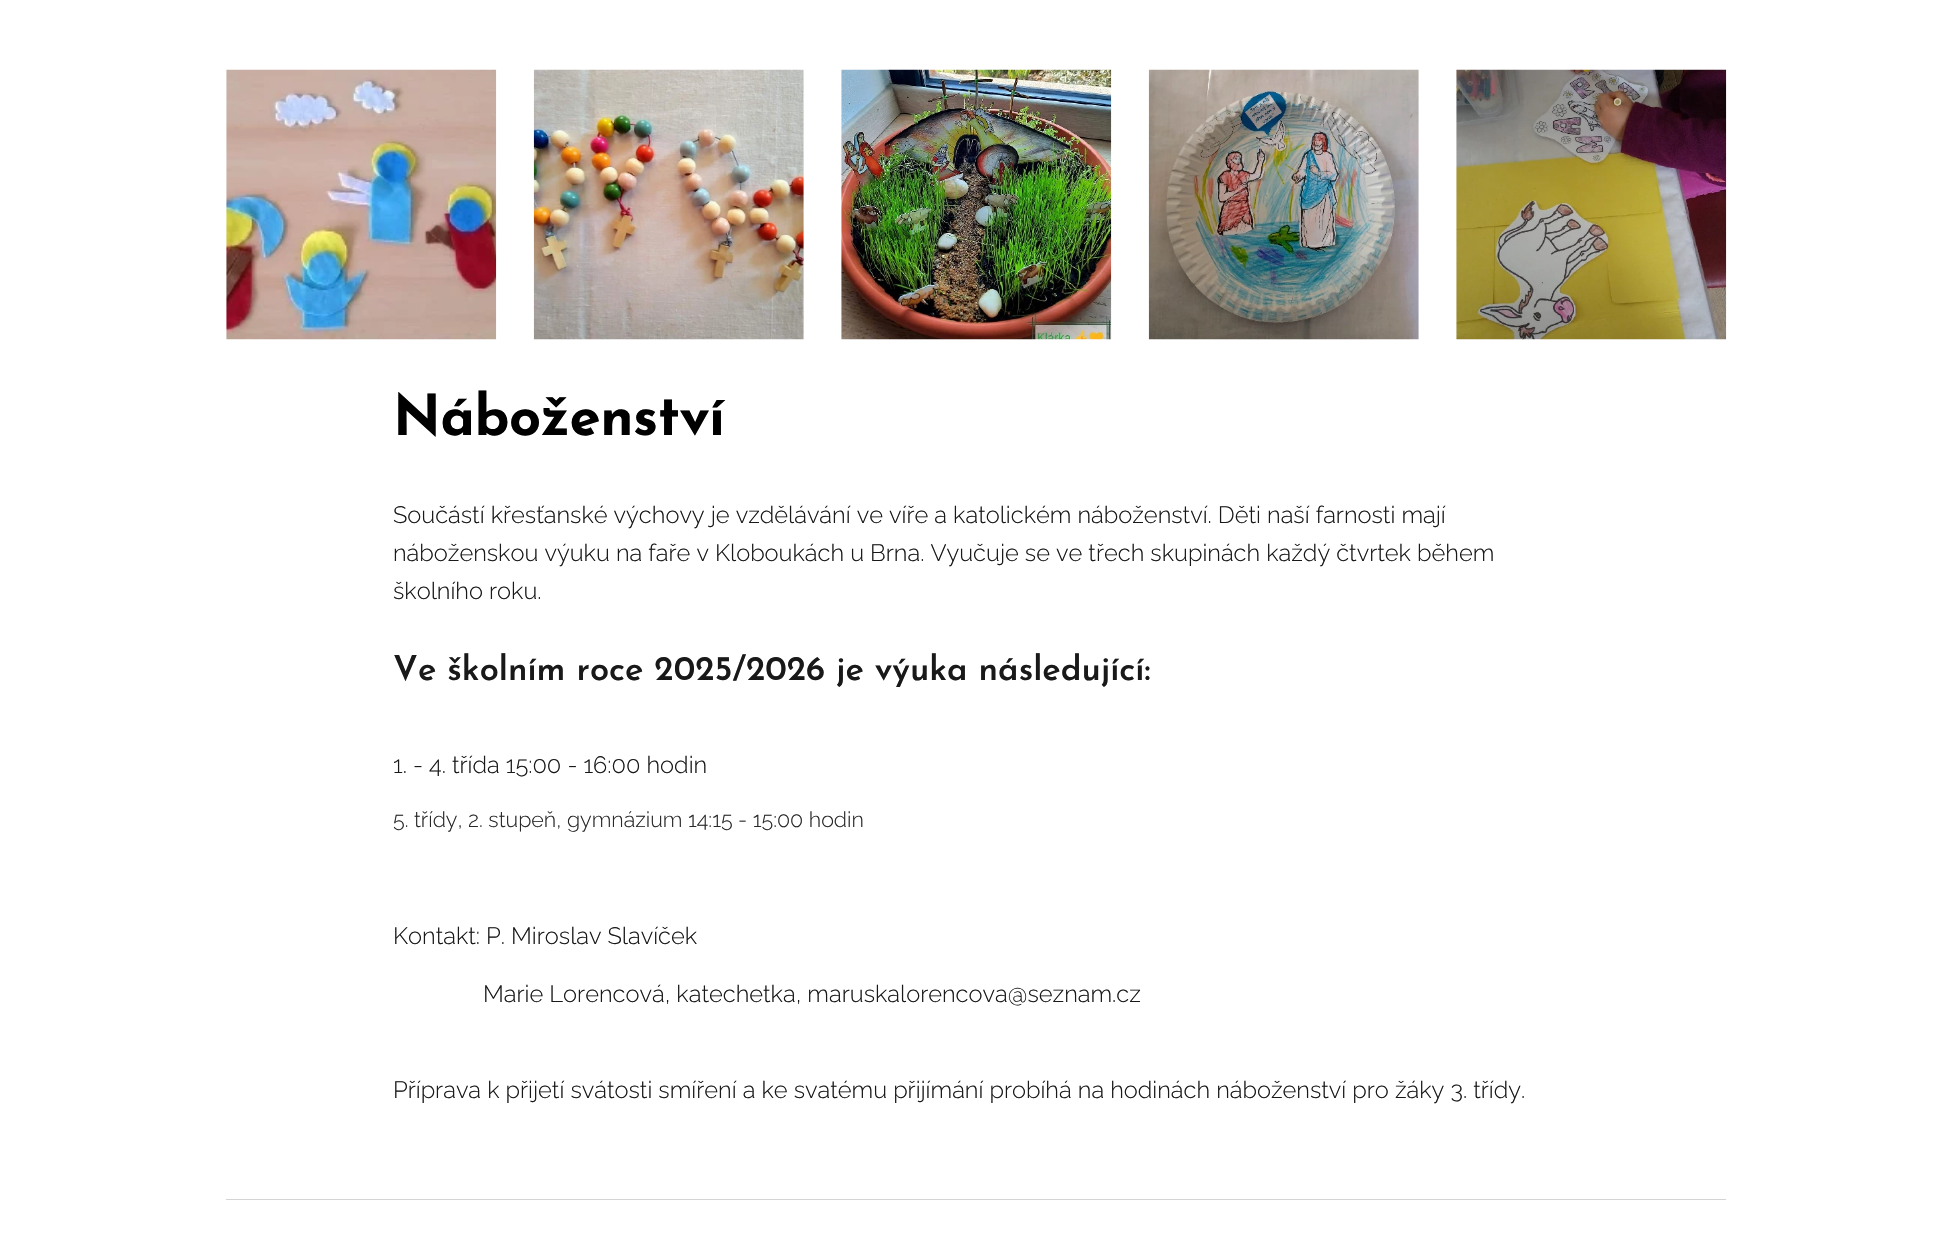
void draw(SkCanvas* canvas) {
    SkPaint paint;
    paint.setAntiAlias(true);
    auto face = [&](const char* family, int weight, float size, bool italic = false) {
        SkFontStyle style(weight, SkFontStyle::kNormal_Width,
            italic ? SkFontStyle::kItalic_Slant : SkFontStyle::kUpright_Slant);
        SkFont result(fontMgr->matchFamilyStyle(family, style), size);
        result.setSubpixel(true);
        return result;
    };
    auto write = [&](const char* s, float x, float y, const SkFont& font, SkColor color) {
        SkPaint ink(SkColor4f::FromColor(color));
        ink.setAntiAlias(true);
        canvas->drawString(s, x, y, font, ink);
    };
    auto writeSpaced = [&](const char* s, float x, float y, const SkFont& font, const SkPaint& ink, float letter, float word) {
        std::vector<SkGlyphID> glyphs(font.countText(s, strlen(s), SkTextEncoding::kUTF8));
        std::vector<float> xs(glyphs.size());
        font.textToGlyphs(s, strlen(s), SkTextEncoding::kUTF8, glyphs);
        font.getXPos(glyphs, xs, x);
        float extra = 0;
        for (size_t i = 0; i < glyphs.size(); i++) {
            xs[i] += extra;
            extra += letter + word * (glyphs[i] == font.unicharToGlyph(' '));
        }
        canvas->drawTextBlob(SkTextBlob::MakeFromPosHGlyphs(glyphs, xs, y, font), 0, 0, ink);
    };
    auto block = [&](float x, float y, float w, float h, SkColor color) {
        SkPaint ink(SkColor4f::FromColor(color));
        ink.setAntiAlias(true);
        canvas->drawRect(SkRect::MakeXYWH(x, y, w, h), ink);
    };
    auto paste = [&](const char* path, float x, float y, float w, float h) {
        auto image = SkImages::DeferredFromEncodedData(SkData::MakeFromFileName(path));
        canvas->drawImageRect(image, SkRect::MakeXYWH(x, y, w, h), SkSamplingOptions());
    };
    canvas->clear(SK_ColorWHITE);
    paste("pic1.png", 226, 69, 271, 271);
    paste("pic2.png", 533, 69, 271, 271);
    paste("pic3.png", 841, 69, 271, 271);
    paste("pic4.png", 1148, 69, 271, 271);
    paste("pic5.png", 1456, 69, 271, 271);
    auto kFont1 = face("Josefin Sans", 700, 56.25f);
    paint.setColor(SK_ColorBLACK);
    writeSpaced("Náboženství", 393, 435, kFont1, paint, -0.5f, 0);
    auto kFont2 = face("Raleway", 300, 23.65f);
    write("Součástí křesťanské výchovy je vzdělávání ve víře a katolickém náboženství. Děti naší farnosti mají", 393, 523, kFont2, SkColorSetRGB(25, 25, 25));
    write("náboženskou výuku na faře v Kloboukách u Brna. Vyučuje se ve třech skupinách každý čtvrtek během", 393, 561, kFont2, SkColorSetRGB(25, 25, 25));
    write("školního roku.", 393, 599, kFont2, SkColorSetRGB(25, 25, 25));
    auto kFont3 = face("Josefin Sans", 600, 34.4f);
    write("Ve školním roce 2025/2026 je výuka následující:", 393, 680, kFont3, SkColorSetRGB(25, 25, 25));
    write("1. - 4. třída 15:00 - 16:00 hodin", 393, 773, kFont2, SkColorSetRGB(25, 25, 25));
    auto kFont4 = face("Raleway", 300, 21.5f);
    write("5. třídy, 2. stupeň, gymnázium 14:15 - 15:00 hodin", 393, 827, kFont4, SkColorSetRGB(40, 40, 40));
    write("Kontakt: P. Miroslav Slavíček", 393, 944, kFont2, SkColorSetRGB(25, 25, 25));
    write("Marie Lorencová, katechetka, maruskalorencova@seznam.cz", 483, 1002, kFont2, SkColorSetRGB(25, 25, 25));
    write("Příprava k přijetí svátosti smíření a ke svatému přijímání probíhá na hodinách náboženství pro žáky 3. třídy.", 393, 1098, kFont2, SkColorSetRGB(25, 25, 25));
    block(226, 1199, 1500, 1, SkColorSetRGB(212, 212, 212));
}
